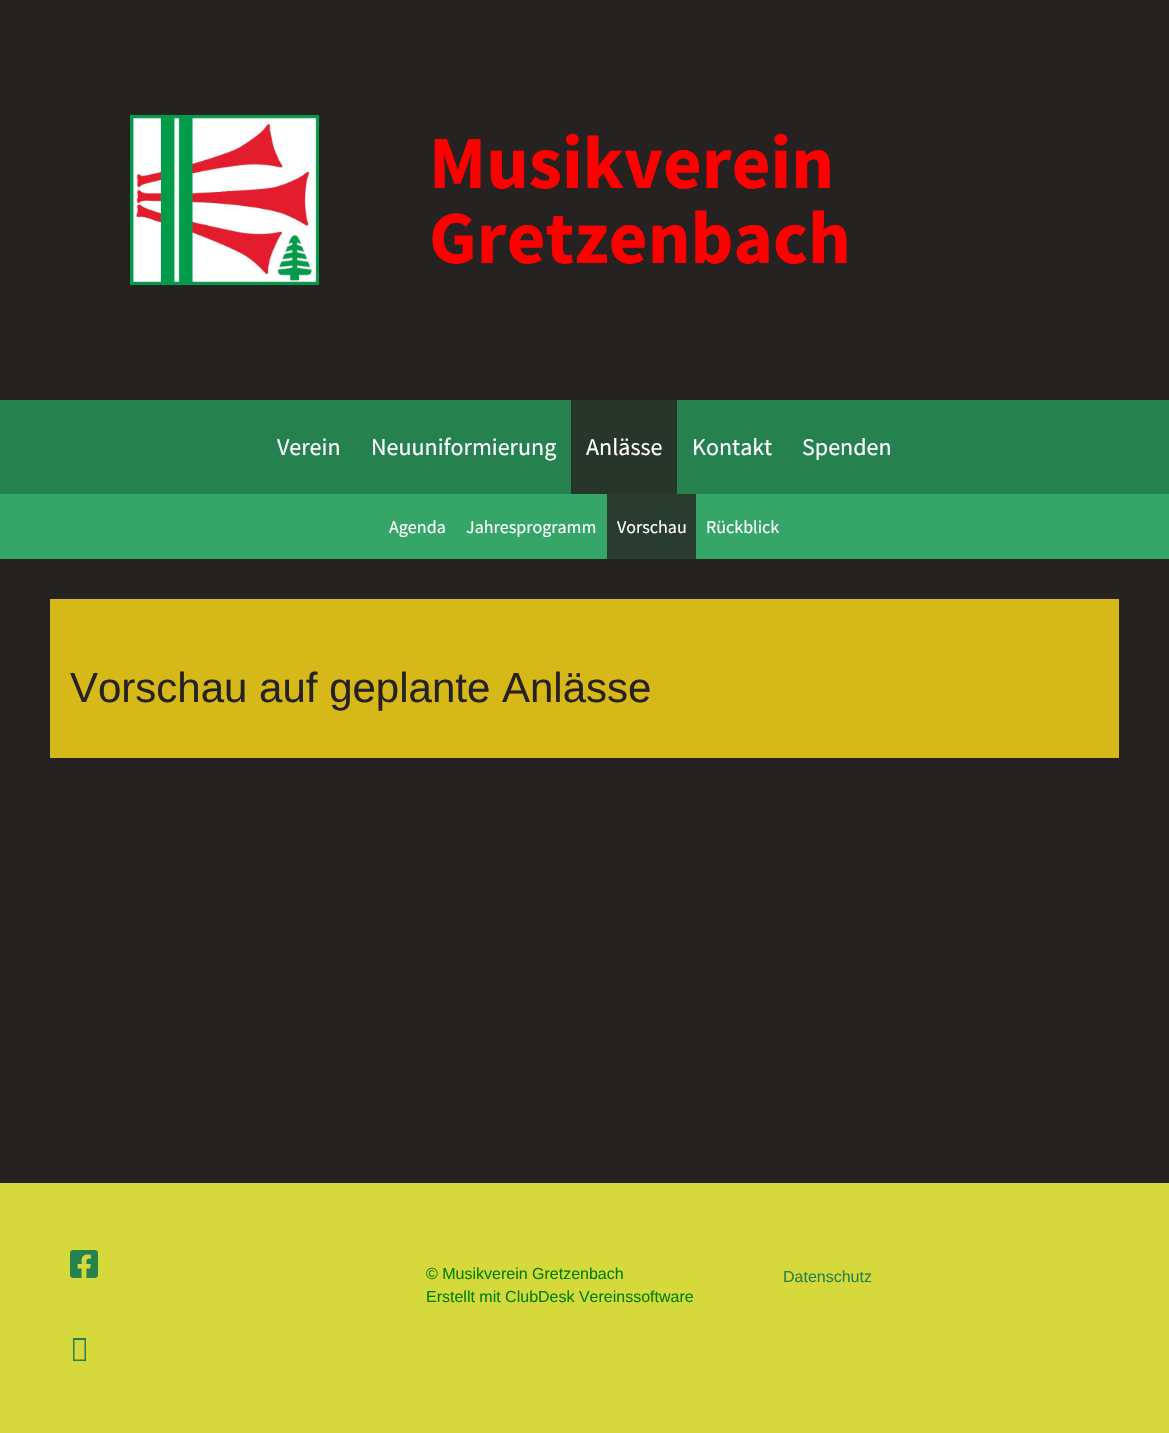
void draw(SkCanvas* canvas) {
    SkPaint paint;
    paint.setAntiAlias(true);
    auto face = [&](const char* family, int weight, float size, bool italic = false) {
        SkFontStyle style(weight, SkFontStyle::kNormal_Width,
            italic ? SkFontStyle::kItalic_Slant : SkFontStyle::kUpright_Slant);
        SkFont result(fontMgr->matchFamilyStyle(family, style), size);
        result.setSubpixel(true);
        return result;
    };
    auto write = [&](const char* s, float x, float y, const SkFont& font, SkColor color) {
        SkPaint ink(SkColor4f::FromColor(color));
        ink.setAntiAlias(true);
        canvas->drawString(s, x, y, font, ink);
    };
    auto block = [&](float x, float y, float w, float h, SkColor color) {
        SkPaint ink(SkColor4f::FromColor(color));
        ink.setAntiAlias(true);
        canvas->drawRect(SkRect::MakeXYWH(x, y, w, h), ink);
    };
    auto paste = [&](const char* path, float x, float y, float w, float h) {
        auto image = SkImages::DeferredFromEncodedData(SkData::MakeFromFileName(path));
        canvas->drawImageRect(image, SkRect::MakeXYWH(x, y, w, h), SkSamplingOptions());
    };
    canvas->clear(SkColorSetRGB(39, 34, 34));
    paste("pic1.png", 130, 115, 189, 170);
    auto kFont1 = face("Source Sans Pro", 700, 75);
    write("Musikverein", 429, 188, kFont1, SkColorSetRGB(255, 0, 0));
    write("Gretzenbach", 429, 263, kFont1, SkColorSetRGB(255, 0, 0));
    block(0, 400, 1169, 94, SkColorSetRGB(37, 129, 78));
    auto kFont2 = face("Source Sans Pro", 400, 24);
    write("Verein", 277, 455, kFont2, SK_ColorWHITE);
    write("Neuuniformierung", 371, 455, kFont2, SK_ColorWHITE);
    block(571, 400, 106, 94, SkColorSetRGB(39, 53, 43));
    write("Anlässe", 586, 455, kFont2, SK_ColorWHITE);
    write("Kontakt", 692, 455, kFont2, SK_ColorWHITE);
    write("Spenden", 802, 455, kFont2, SK_ColorWHITE);
    block(0, 494, 1169, 65, SkColorSetRGB(54, 165, 104));
    auto kFont3 = face("Source Sans Pro", 400, 18);
    write("Agenda", 389, 533, kFont3, SK_ColorWHITE);
    write("Jahresprogramm", 466, 533, kFont3, SK_ColorWHITE);
    block(607, 494, 89, 65, SkColorSetRGB(42, 60, 48));
    write("Vorschau", 617, 533, kFont3, SK_ColorWHITE);
    write("Rückblick", 706, 533, kFont3, SK_ColorWHITE);
    block(50, 599, 1069, 159, SkColorSetRGB(215, 184, 25));
    auto kFont4 = face("Liberation Sans", 400, 42);
    write("Vorschau auf geplante Anlässe", 70, 702, kFont4, SkColorSetRGB(39, 34, 34));
    block(0, 1183, 1169, 250, SkColorSetRGB(214, 217, 59));
    paste("pic2.png", 70, 1250, 28, 28);
    paint.setColor(SkColorSetRGB(37, 129, 78));
    canvas->drawPath(SkPathBuilder().moveTo(73, 1361).lineTo(73, 1338).lineTo(86, 1338).lineTo(86, 1361).close().moveTo(74.5f, 1359.5f).lineTo(84.5f, 1359.5f).lineTo(84.5f, 1340).lineTo(74.5f, 1340).close().detach(), paint);
    auto kFont5 = face("Liberation Sans", 400, 16);
    write("© Musikverein Gretzenbach", 426, 1279, kFont5, SkColorSetRGB(0, 128, 0));
    write("Erstellt mit ClubDesk Vereinssoftware", 426, 1302, kFont5, SkColorSetRGB(0, 128, 0));
    write("Datenschutz", 783, 1282, kFont5, SkColorSetRGB(37, 129, 78));
}
